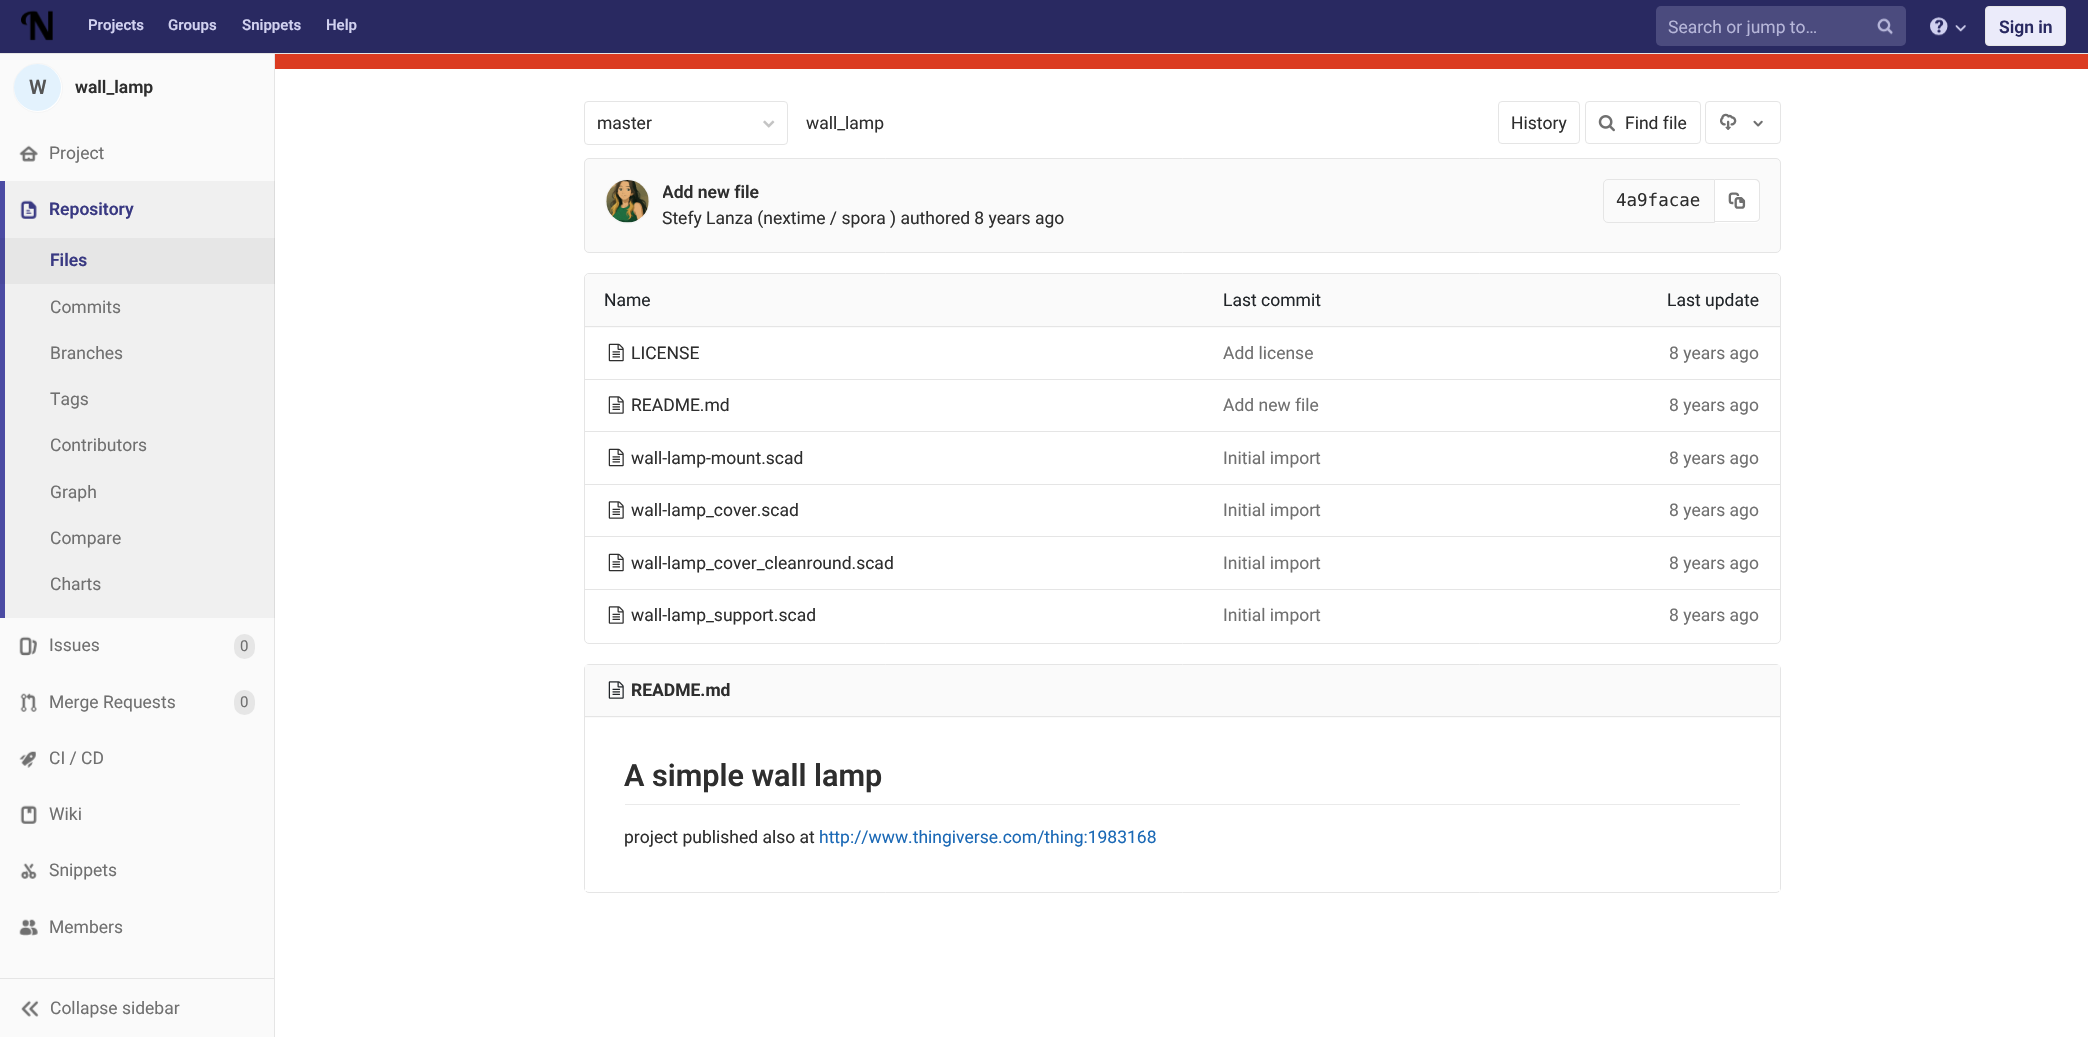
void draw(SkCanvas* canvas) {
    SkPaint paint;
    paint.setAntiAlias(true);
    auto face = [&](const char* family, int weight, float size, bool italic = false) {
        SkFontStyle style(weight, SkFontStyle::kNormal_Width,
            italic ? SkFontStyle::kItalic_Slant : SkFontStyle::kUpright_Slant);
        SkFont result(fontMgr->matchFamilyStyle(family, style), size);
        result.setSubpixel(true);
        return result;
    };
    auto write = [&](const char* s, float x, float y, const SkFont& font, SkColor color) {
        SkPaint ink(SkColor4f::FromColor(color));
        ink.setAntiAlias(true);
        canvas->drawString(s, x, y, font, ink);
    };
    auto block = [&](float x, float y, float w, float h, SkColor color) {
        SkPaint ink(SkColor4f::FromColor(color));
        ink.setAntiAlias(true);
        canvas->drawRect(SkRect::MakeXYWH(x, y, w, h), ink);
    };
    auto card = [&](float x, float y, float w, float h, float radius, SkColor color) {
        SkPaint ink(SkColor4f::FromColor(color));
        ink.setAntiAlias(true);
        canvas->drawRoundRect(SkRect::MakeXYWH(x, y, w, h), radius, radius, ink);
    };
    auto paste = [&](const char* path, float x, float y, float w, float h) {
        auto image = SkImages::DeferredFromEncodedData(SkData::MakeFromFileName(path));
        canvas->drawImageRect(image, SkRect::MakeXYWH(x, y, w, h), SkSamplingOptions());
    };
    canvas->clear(SK_ColorWHITE);
    block(274, 50, 1, 987, SkColorSetRGB(229, 229, 229));
    block(0, 0, 2088, 53, SkColorSetRGB(41, 41, 97));
    block(0, 53, 2088, 1, SkColorSetRGB(229, 229, 229));
    paste("pic1.png", 21, 10, 32, 31);
    auto kFont1 = face("Roboto", 600, 15);
    write("Projects", 88, 30, kFont1, SkColorSetRGB(209, 209, 240));
    write("Groups", 168, 30, kFont1, SkColorSetRGB(209, 209, 240));
    write("Snippets", 242, 30, kFont1, SkColorSetRGB(209, 209, 240));
    write("Help", 326, 30, kFont1, SkColorSetRGB(209, 209, 240));
    card(1656, 6, 250, 40, 5, SkColorSetRGB(75, 75, 126));
    canvas->save();
    canvas->clipRect(SkRect::MakeXYWH(1668, 16, 205, 20));
    auto kFont2 = face("Roboto", 400, 17.5f);
    write("Search or jump to…", 1668, 33, kFont2, SkColorSetRGB(182, 182, 217));
    canvas->restore();
    paste("pic2.png", 1877, 18, 16, 17);
    paste("pic3.png", 1930, 17, 18, 19);
    paste("pic4.png", 1955, 25, 11, 7);
    paint.setColor(SkColorSetRGB(235, 235, 250));
    canvas->drawRoundRect(SkRect::MakeXYWH(1985.5f, 6.5f, 80, 39), 3.5f, 3.5f, paint);
    paint.setStyle(SkPaint::kStroke_Style);
    paint.setStrokeWidth(1);
    paint.setColor(SkColorSetRGB(229, 229, 229));
    canvas->drawRoundRect(SkRect::MakeXYWH(1985.5f, 6.5f, 80, 39), 3.5f, 3.5f, paint);
    auto kFont3 = face("Roboto", 600, 17.5f);
    write("Sign in", 1999, 33, kFont3, SkColorSetRGB(41, 41, 97));
    block(0, 54, 274, 983, SkColorSetRGB(250, 250, 250));
    block(5, 181, 269, 437, SkColorSetRGB(240, 240, 240));
    block(5, 238, 269, 46, SkColorSetRGB(230, 230, 230));
    block(274, 181, 1, 437, SkColorSetRGB(220, 220, 220));
    block(274, 238, 1, 46, SkColorSetRGB(211, 211, 211));
    paint.setStyle(SkPaint::kFill_Style);
    paint.setColor(SK_ColorWHITE);
    canvas->drawCircle(38, 88, 24.5f, paint);
    paint.setStyle(SkPaint::kStroke_Style);
    paint.setColor(SkColorSetRGB(245, 245, 245));
    canvas->drawCircle(38, 88, 24.5f, paint);
    paint.setStyle(SkPaint::kFill_Style);
    paint.setColor(SkColorSetRGB(227, 242, 253));
    canvas->drawCircle(37.5f, 87.5f, 23.5f, paint);
    auto kFont4 = face("Roboto", 600, 20);
    write("W", 29, 94, kFont4, SkColorSetRGB(85, 85, 85));
    write("wall_lamp", 75, 93, kFont3, SkColorSetRGB(46, 46, 46));
    paste("pic5.png", 19, 145, 19, 17);
    write("Project", 49, 159, kFont2, SkColorSetRGB(112, 112, 112));
    block(0, 181, 5, 437, SkColorSetRGB(75, 75, 163));
    block(0, 238, 5, 46, SkColorSetRGB(72, 72, 156));
    paste("pic6.png", 20, 200, 17, 19);
    write("Repository", 49, 215, kFont3, SkColorSetRGB(57, 57, 130));
    write("Files", 50, 266, kFont3, SkColorSetRGB(57, 57, 130));
    write("Commits", 50, 313, kFont2, SkColorSetRGB(112, 112, 112));
    write("Branches", 50, 359, kFont2, SkColorSetRGB(112, 112, 112));
    write("Tags", 50, 405, kFont2, SkColorSetRGB(112, 112, 112));
    write("Contributors", 50, 451, kFont2, SkColorSetRGB(112, 112, 112));
    write("Graph", 50, 498, kFont2, SkColorSetRGB(112, 112, 112));
    write("Compare", 50, 544, kFont2, SkColorSetRGB(112, 112, 112));
    write("Charts", 50, 590, kFont2, SkColorSetRGB(112, 112, 112));
    paste("pic7.png", 19, 636, 18, 20);
    write("Issues", 49, 651, kFont2, SkColorSetRGB(112, 112, 112));
    card(234, 634, 21, 25, 10.5f, SkColorSetRGB(230, 230, 230));
    auto kFont5 = face("Roboto", 400, 15);
    write("0", 240, 651, kFont5, SkColorSetRGB(112, 112, 112));
    paste("pic8.png", 20, 693, 17, 19);
    write("Merge Requests", 49, 708, kFont2, SkColorSetRGB(112, 112, 112));
    card(234, 690, 21, 25, 10.5f, SkColorSetRGB(230, 230, 230));
    write("0", 240, 707, kFont5, SkColorSetRGB(112, 112, 112));
    paste("pic9.png", 19, 751, 17, 17);
    write("CI / CD", 49, 764, kFont2, SkColorSetRGB(112, 112, 112));
    paste("pic10.png", 20, 805, 17, 19);
    write("Wiki", 49, 820, kFont2, SkColorSetRGB(112, 112, 112));
    paste("pic11.png", 20, 863, 17, 16);
    write("Snippets", 49, 876, kFont2, SkColorSetRGB(112, 112, 112));
    paste("pic12.png", 19, 919, 19, 17);
    write("Members", 49, 933, kFont2, SkColorSetRGB(112, 112, 112));
    block(0, 978, 274, 1, SkColorSetRGB(229, 229, 229));
    paste("pic13.png", 21, 1000, 18, 17);
    write("Collapse sidebar", 50, 1014, kFont2, SkColorSetRGB(112, 112, 112));
    block(275, 54, 1813, 15, SkColorSetRGB(219, 59, 33));
    paint.setStyle(SkPaint::kStroke_Style);
    paint.setColor(SkColorSetRGB(229, 229, 229));
    canvas->drawRoundRect(SkRect::MakeXYWH(584.5f, 101.5f, 203, 43), 3.5f, 3.5f, paint);
    write("master", 597, 129, kFont2, SkColorSetRGB(46, 46, 46));
    paste("pic14.png", 763, 120, 12, 8);
    write("wall_lamp", 806, 129, kFont2, SkColorSetRGB(46, 46, 46));
    canvas->drawRoundRect(SkRect::MakeXYWH(1498.5f, 101.5f, 81, 42), 3.5f, 3.5f, paint);
    write("History", 1511, 129, kFont2, SkColorSetRGB(46, 46, 46));
    canvas->drawRoundRect(SkRect::MakeXYWH(1585.5f, 101.5f, 115, 42), 3.5f, 3.5f, paint);
    paste("pic15.png", 1598, 115, 17, 17);
    write("Find file", 1625, 129, kFont2, SkColorSetRGB(46, 46, 46));
    canvas->drawRoundRect(SkRect::MakeXYWH(1705.5f, 101.5f, 75, 42), 3.5f, 3.5f, paint);
    paste("pic16.png", 1720, 113, 17, 17);
    paste("pic17.png", 1753, 120, 10, 7);
    paint.setStyle(SkPaint::kFill_Style);
    paint.setColor(SkColorSetRGB(250, 250, 250));
    canvas->drawRoundRect(SkRect::MakeXYWH(584.5f, 158.5f, 1196, 94), 4.5f, 4.5f, paint);
    paint.setStyle(SkPaint::kStroke_Style);
    paint.setColor(SkColorSetRGB(229, 229, 229));
    canvas->drawRoundRect(SkRect::MakeXYWH(584.5f, 158.5f, 1196, 94), 4.5f, 4.5f, paint);
    paint.setStyle(SkPaint::kFill_Style);
    paint.setColor(SkColorSetRGB(253, 253, 253));
    canvas->drawCircle(627.5f, 201.5f, 22, paint);
    paint.setStyle(SkPaint::kStroke_Style);
    paint.setColor(SkColorSetRGB(245, 245, 245));
    canvas->drawCircle(627.5f, 201.5f, 22, paint);
    paste("pic18.png", 606, 180, 43, 43);
    canvas->save();
    canvas->clipRect(SkRect::MakeXYWH(663, 179, 413, 52));
    write("Add new file", 662, 198, kFont3, SkColorSetRGB(46, 46, 46));
    canvas->restore();
    write("Stefy Lanza (nextime / spora ) authored 8 years ago", 662, 224, kFont2, SkColorSetRGB(46, 46, 46));
    paint.setColor(SkColorSetRGB(229, 229, 229));
    canvas->drawPath(SkPathBuilder().moveTo(1608, 179.5f).lineTo(1714.5f, 179.5f).lineTo(1714.5f, 222.5f).lineTo(1608, 222.5f).cubicTo(1605.5f, 222.5f, 1603.5f, 220.5f, 1603.5f, 218).lineTo(1603.5f, 184).cubicTo(1603.5f, 181.5f, 1605.5f, 179.5f, 1608, 179.5f).close().detach(), paint);
    auto kFont6 = face("DejaVu Sans Mono", 400, 17.5f);
    write("4a9facae", 1616, 206, kFont6, SkColorSetRGB(46, 46, 46));
    paint.setStyle(SkPaint::kFill_Style);
    paint.setColor(SK_ColorWHITE);
    canvas->drawPath(SkPathBuilder().moveTo(1715, 179).lineTo(1755, 179).cubicTo(1758, 179, 1760, 181, 1760, 184).lineTo(1760, 218).cubicTo(1760, 221, 1758, 223, 1755, 223).lineTo(1715, 223).close().detach(), paint);
    paint.setColor(SkColorSetRGB(229, 229, 229));
    canvas->drawPath(SkPathBuilder(SkPathFillType::kEvenOdd).moveTo(1715, 179).lineTo(1755, 179).cubicTo(1758, 179, 1760, 181, 1760, 184).lineTo(1760, 218).cubicTo(1760, 220, 1758, 222, 1755, 222).lineTo(1715, 222).close().moveTo(1715, 180).lineTo(1755, 180).cubicTo(1757, 180, 1759, 182, 1759, 184).lineTo(1759, 218).cubicTo(1759, 220, 1757, 221, 1755, 221).lineTo(1715, 221).close().detach(), paint);
    paste("pic19.png", 1728, 192, 18, 17);
    paint.setStyle(SkPaint::kStroke_Style);
    canvas->drawRoundRect(SkRect::MakeXYWH(584.5f, 273.5f, 1196, 370), 4.5f, 4.5f, paint);
    canvas->save();
    canvas->clipPath(SkPathBuilder().moveTo(589, 274).lineTo(1776, 274).cubicTo(1778, 274, 1780, 276, 1780, 278).lineTo(1780, 639).cubicTo(1780, 641, 1778, 643, 1776, 643).lineTo(589, 643).cubicTo(587, 643, 585, 641, 585, 639).lineTo(585, 278).cubicTo(585, 276, 587, 274, 589, 274).close().detach(), true);
    block(585, 275, 619, 53, SkColorSetRGB(250, 250, 250));
    block(1461, 274, 319, 1, SkColorSetRGB(250, 250, 250));
    canvas->restore();
    block(1203, 274, 260, 1, SkColorSetRGB(250, 250, 250));
    canvas->save();
    canvas->clipPath(SkPathBuilder().moveTo(589, 274).lineTo(1776, 274).cubicTo(1778, 274, 1780, 276, 1780, 278).lineTo(1780, 639).cubicTo(1780, 641, 1778, 643, 1776, 643).lineTo(589, 643).cubicTo(587, 643, 585, 641, 585, 639).lineTo(585, 278).cubicTo(585, 276, 587, 274, 589, 274).close().detach(), true);
    block(585, 274, 619, 1, SkColorSetRGB(250, 250, 250));
    canvas->restore();
    write("Name", 604, 306, kFont2, SkColorSetRGB(33, 37, 41));
    block(1204, 275, 259, 53, SkColorSetRGB(250, 250, 250));
    write("Last commit", 1223, 306, kFont2, SkColorSetRGB(33, 37, 41));
    canvas->save();
    canvas->clipPath(SkPathBuilder().moveTo(589, 274).lineTo(1776, 274).cubicTo(1778, 274, 1780, 276, 1780, 278).lineTo(1780, 639).cubicTo(1780, 641, 1778, 643, 1776, 643).lineTo(589, 643).cubicTo(587, 643, 585, 641, 585, 639).lineTo(585, 278).cubicTo(585, 276, 587, 274, 589, 274).close().detach(), true);
    block(1463, 275, 317, 53, SkColorSetRGB(250, 250, 250));
    canvas->restore();
    write("Last update", 1667, 306, kFont2, SkColorSetRGB(33, 37, 41));
    paste("pic20.png", 608, 343, 16, 19);
    write("LICENSE", 631, 359, kFont2, SkColorSetRGB(46, 46, 46));
    write("Add license", 1223, 359, kFont2, SkColorSetRGB(112, 112, 112));
    block(585, 326, 1195, 1, SkColorSetRGB(229, 229, 229));
    write("8 years ago", 1669, 359, kFont2, SkColorSetRGB(112, 112, 112));
    paste("pic21.png", 608, 396, 16, 18);
    write("README.md", 631, 411, kFont2, SkColorSetRGB(46, 46, 46));
    write("Add new file", 1223, 411, kFont2, SkColorSetRGB(112, 112, 112));
    block(585, 379, 1195, 1, SkColorSetRGB(229, 229, 229));
    write("8 years ago", 1669, 411, kFont2, SkColorSetRGB(112, 112, 112));
    paste("pic20.png", 608, 448, 16, 19);
    write("wall-lamp-mount.scad", 631, 464, kFont2, SkColorSetRGB(46, 46, 46));
    write("Initial import", 1223, 464, kFont2, SkColorSetRGB(112, 112, 112));
    block(585, 431, 1195, 1, SkColorSetRGB(229, 229, 229));
    write("8 years ago", 1669, 464, kFont2, SkColorSetRGB(112, 112, 112));
    paste("pic21.png", 608, 501, 16, 18);
    write("wall-lamp_cover.scad", 631, 516, kFont2, SkColorSetRGB(46, 46, 46));
    write("Initial import", 1223, 516, kFont2, SkColorSetRGB(112, 112, 112));
    block(585, 484, 1195, 1, SkColorSetRGB(229, 229, 229));
    write("8 years ago", 1669, 516, kFont2, SkColorSetRGB(112, 112, 112));
    paste("pic20.png", 608, 553, 16, 19);
    write("wall-lamp_cover_cleanround.scad", 631, 569, kFont2, SkColorSetRGB(46, 46, 46));
    write("Initial import", 1223, 569, kFont2, SkColorSetRGB(112, 112, 112));
    block(585, 536, 1195, 1, SkColorSetRGB(229, 229, 229));
    write("8 years ago", 1669, 569, kFont2, SkColorSetRGB(112, 112, 112));
    canvas->save();
    canvas->clipPath(SkPathBuilder().moveTo(589, 274).lineTo(1776, 274).cubicTo(1778, 274, 1780, 276, 1780, 278).lineTo(1780, 639).cubicTo(1780, 641, 1778, 643, 1776, 643).lineTo(589, 643).cubicTo(587, 643, 585, 641, 585, 639).lineTo(585, 278).cubicTo(585, 276, 587, 274, 589, 274).close().detach(), true);
    block(585, 641, 1195, 1, SK_ColorWHITE);
    canvas->restore();
    paste("pic21.png", 608, 606, 16, 18);
    write("wall-lamp_support.scad", 631, 621, kFont2, SkColorSetRGB(46, 46, 46));
    write("Initial import", 1223, 621, kFont2, SkColorSetRGB(112, 112, 112));
    block(585, 589, 1195, 1, SkColorSetRGB(229, 229, 229));
    write("8 years ago", 1669, 621, kFont2, SkColorSetRGB(112, 112, 112));
    canvas->drawRoundRect(SkRect::MakeXYWH(584.5f, 664.5f, 1196, 228), 4.5f, 4.5f, paint);
    block(585, 665, 1195, 53, SkColorSetRGB(250, 250, 250));
    block(585, 716, 1195, 1, SkColorSetRGB(229, 229, 229));
    paste("pic22.png", 608, 681, 16, 18);
    auto kFont7 = face("Roboto", 700, 17.5f);
    write("README.md", 631, 696, kFont7, SkColorSetRGB(46, 46, 46));
    block(585, 889, 1195, 2, SK_ColorWHITE);
    block(625, 804, 1115, 1, SkColorSetRGB(234, 234, 234));
    auto kFont8 = face("Roboto", 600, 30.6f);
    write("A simple wall lamp", 624, 786, kFont8, SkColorSetRGB(46, 46, 46));
    write("project published also at", 624, 843, kFont2, SkColorSetRGB(46, 46, 46));
    write("http://www.thingiverse.com/thing:1983168", 819, 843, kFont2, SkColorSetRGB(27, 105, 182));
}
